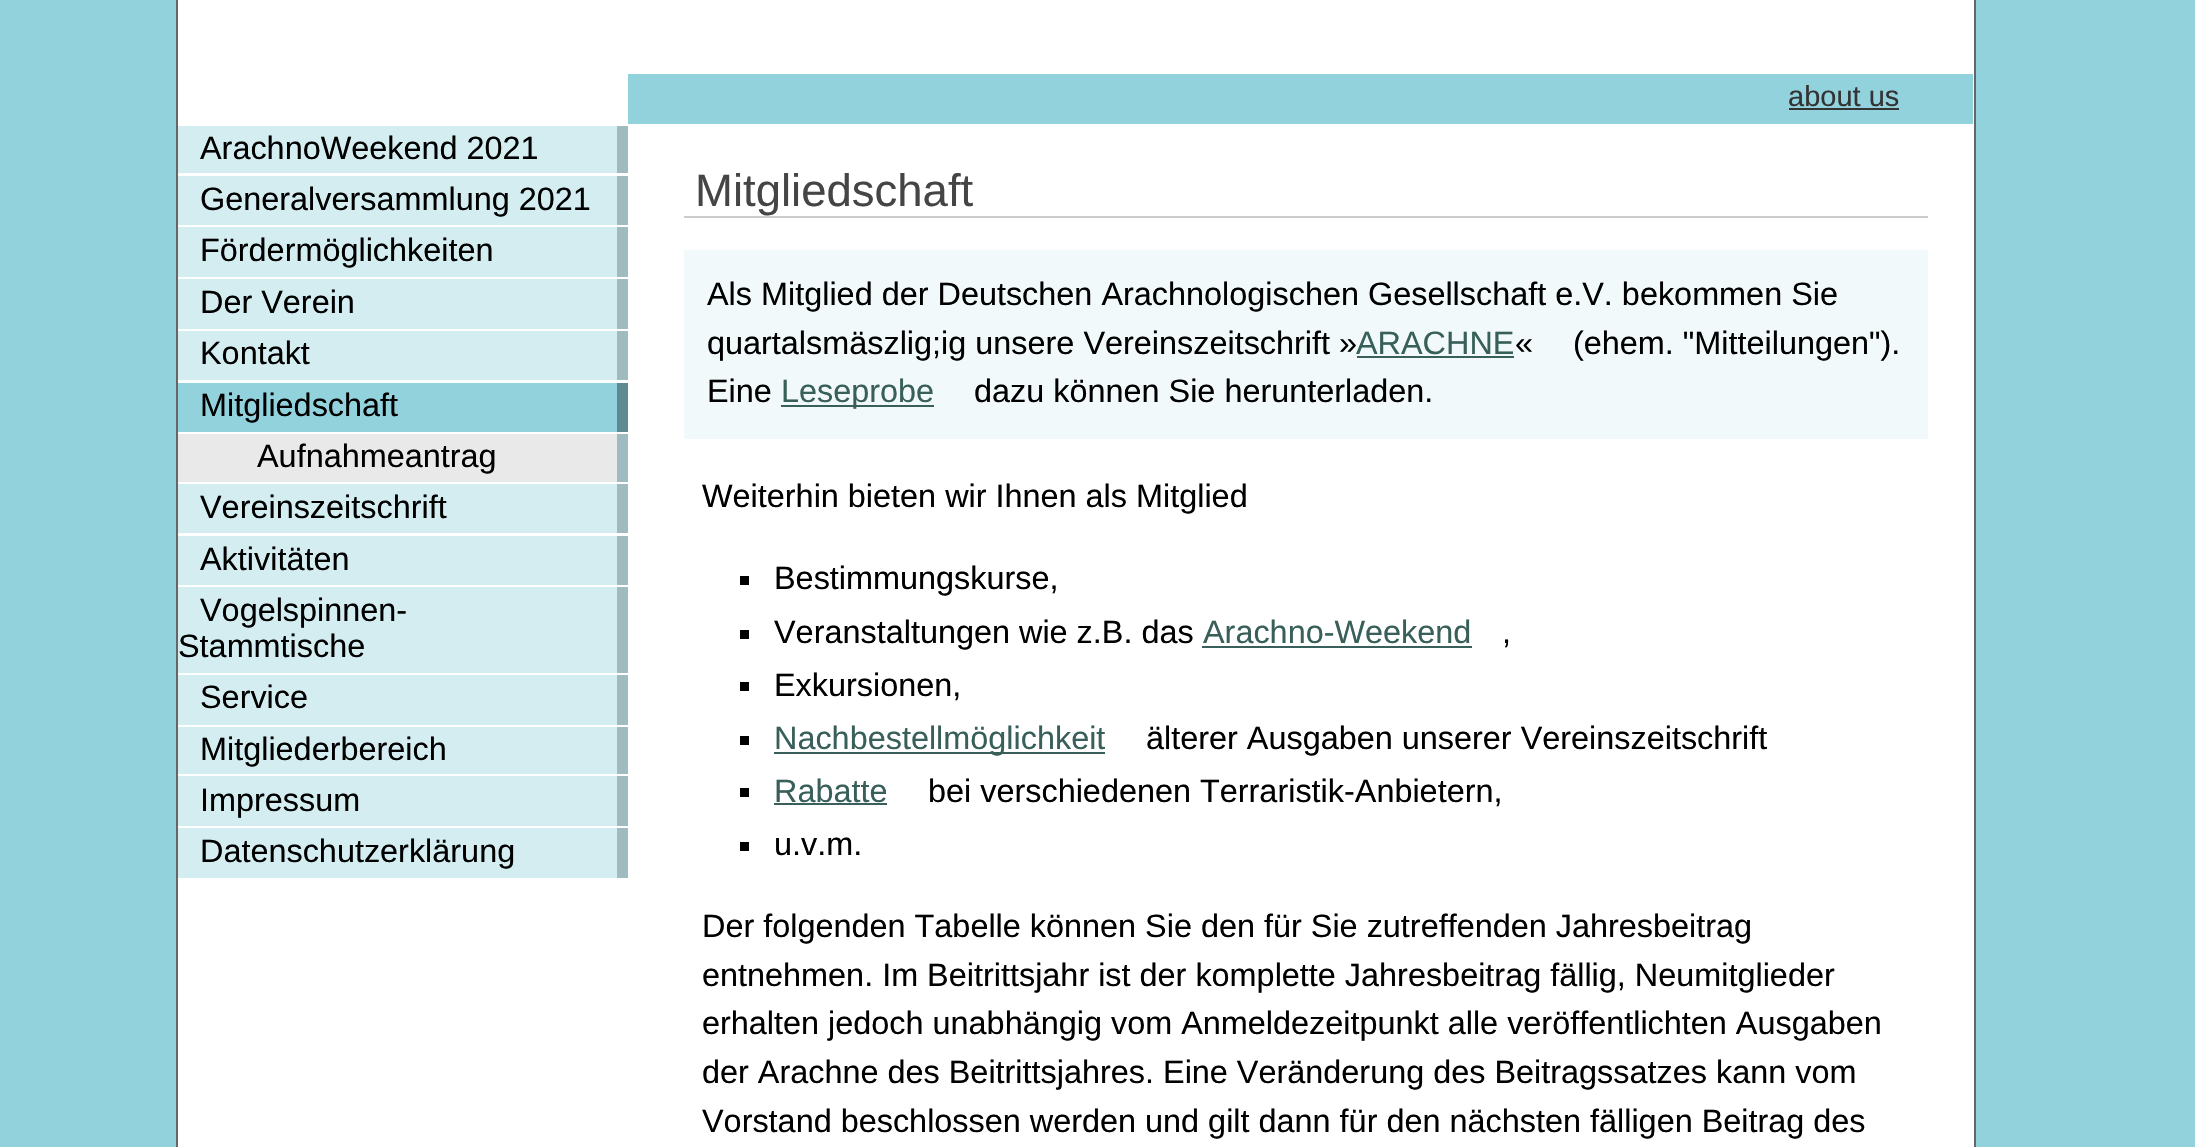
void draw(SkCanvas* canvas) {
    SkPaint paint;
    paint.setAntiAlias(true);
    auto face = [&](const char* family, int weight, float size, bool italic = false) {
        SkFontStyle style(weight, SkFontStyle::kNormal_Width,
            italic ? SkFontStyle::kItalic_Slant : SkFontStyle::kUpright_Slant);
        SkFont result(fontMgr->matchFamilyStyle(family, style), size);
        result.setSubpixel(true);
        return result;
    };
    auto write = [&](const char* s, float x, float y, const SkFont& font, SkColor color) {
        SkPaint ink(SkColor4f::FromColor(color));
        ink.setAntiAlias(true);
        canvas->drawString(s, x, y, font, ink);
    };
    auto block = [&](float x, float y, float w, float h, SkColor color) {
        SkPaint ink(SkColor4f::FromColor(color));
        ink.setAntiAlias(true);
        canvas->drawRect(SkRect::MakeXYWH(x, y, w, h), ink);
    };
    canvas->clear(SkColorSetRGB(145, 210, 221));
    paint.setColor(SK_ColorWHITE);
    canvas->drawRect(SkRect::MakeXYWH(177, -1, 1798, 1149), paint);
    paint.setStyle(SkPaint::kStroke_Style);
    paint.setStrokeWidth(2);
    paint.setColor(SkColorSetRGB(102, 102, 102));
    canvas->drawRect(SkRect::MakeXYWH(177, -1, 1798, 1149), paint);
    block(628, 74, 1345, 50, SkColorSetRGB(145, 210, 221));
    auto kFont1 = face("Liberation Sans", 400, 29);
    write("about us", 1788, 106, kFont1, SkColorSetRGB(51, 51, 51));
    block(1789, 108, 110, 2, SkColorSetRGB(51, 51, 51));
    block(178, 126, 439, 47, SkColorSetRGB(211, 237, 241));
    block(617, 126, 11, 47, SkColorSetRGB(160, 187, 191));
    auto kFont2 = face("Liberation Sans", 400, 32.4f);
    write("ArachnoWeekend 2021", 200, 159, kFont2, SK_ColorBLACK);
    block(178, 176, 439, 49, SkColorSetRGB(211, 237, 241));
    block(617, 176, 11, 49, SkColorSetRGB(160, 187, 191));
    write("Generalversammlung 2021", 200, 210, kFont2, SK_ColorBLACK);
    block(178, 227, 439, 50, SkColorSetRGB(211, 237, 241));
    block(617, 227, 11, 50, SkColorSetRGB(160, 187, 191));
    write("Fördermöglichkeiten", 200, 261, kFont2, SK_ColorBLACK);
    block(178, 279, 439, 50, SkColorSetRGB(211, 237, 241));
    block(617, 279, 11, 50, SkColorSetRGB(160, 187, 191));
    write("Der Verein", 200, 313, kFont2, SK_ColorBLACK);
    block(178, 331, 439, 49, SkColorSetRGB(211, 237, 241));
    block(617, 331, 11, 49, SkColorSetRGB(160, 187, 191));
    write("Kontakt", 200, 364, kFont2, SK_ColorBLACK);
    block(178, 383, 439, 49, SkColorSetRGB(145, 210, 221));
    block(617, 383, 11, 49, SkColorSetRGB(96, 138, 145));
    write("Mitgliedschaft", 200, 416, kFont2, SK_ColorBLACK);
    block(178, 434, 439, 48, SkColorSetRGB(233, 233, 233));
    block(617, 434, 11, 48, SkColorSetRGB(160, 187, 191));
    write("Aufnahmeantrag", 257, 467, kFont2, SK_ColorBLACK);
    block(178, 484, 439, 49, SkColorSetRGB(211, 237, 241));
    block(617, 484, 11, 49, SkColorSetRGB(160, 187, 191));
    write("Vereinszeitschrift", 200, 518, kFont2, SK_ColorBLACK);
    block(178, 536, 439, 49, SkColorSetRGB(211, 237, 241));
    block(617, 536, 11, 49, SkColorSetRGB(160, 187, 191));
    write("Aktivitäten", 200, 570, kFont2, SK_ColorBLACK);
    block(178, 587, 439, 86, SkColorSetRGB(211, 237, 241));
    block(617, 587, 11, 86, SkColorSetRGB(160, 187, 191));
    write("Vogelspinnen-", 200, 621, kFont2, SK_ColorBLACK);
    write("Stammtische", 178, 657, kFont2, SK_ColorBLACK);
    block(178, 675, 439, 50, SkColorSetRGB(211, 237, 241));
    block(617, 675, 11, 50, SkColorSetRGB(160, 187, 191));
    write("Service", 200, 708, kFont2, SK_ColorBLACK);
    block(178, 727, 439, 47, SkColorSetRGB(211, 237, 241));
    block(617, 727, 11, 47, SkColorSetRGB(160, 187, 191));
    write("Mitgliederbereich", 200, 760, kFont2, SK_ColorBLACK);
    block(178, 776, 439, 50, SkColorSetRGB(211, 237, 241));
    block(617, 776, 11, 50, SkColorSetRGB(160, 187, 191));
    write("Impressum", 200, 811, kFont2, SK_ColorBLACK);
    block(178, 828, 439, 50, SkColorSetRGB(211, 237, 241));
    block(617, 828, 11, 50, SkColorSetRGB(160, 187, 191));
    write("Datenschutzerklärung", 200, 862, kFont2, SK_ColorBLACK);
    block(684, 216, 1244, 2, SkColorSetRGB(204, 204, 204));
    auto kFont3 = face("Liberation Sans", 400, 45.5f);
    write("Mitgliedschaft", 695, 206, kFont3, SkColorSetRGB(69, 69, 69));
    block(684, 250, 1244, 189, SkColorSetRGB(241, 249, 250));
    write("Als Mitglied der Deutschen Arachnologischen Gesellschaft e.V. bekommen Sie", 707, 305, kFont2, SK_ColorBLACK);
    write("quartalsmäszlig;ig unsere Vereinszeitschrift »", 707, 354, kFont2, SK_ColorBLACK);
    write("ARACHNE", 1356, 354, kFont2, SkColorSetRGB(56, 95, 89));
    block(1357, 356, 157, 2, SkColorSetRGB(56, 95, 89));
    write("«", 1515, 354, kFont2, SK_ColorBLACK);
    write("(ehem. \"Mitteilungen\").", 1573, 354, kFont2, SK_ColorBLACK);
    write("Eine", 707, 402, kFont2, SK_ColorBLACK);
    block(781, 405, 153, 2, SkColorSetRGB(56, 95, 89));
    write("Leseprobe", 781, 402, kFont2, SkColorSetRGB(56, 95, 89));
    write("dazu können Sie herunterladen.", 974, 402, kFont2, SK_ColorBLACK);
    write("Weiterhin bieten wir Ihnen als Mitglied", 702, 507, kFont2, SK_ColorBLACK);
    block(740, 576, 9, 9, SK_ColorBLACK);
    write("Bestimmungskurse,", 774, 589, kFont2, SK_ColorBLACK);
    block(740, 630, 9, 9, SK_ColorBLACK);
    write("Veranstaltungen wie z.B. das", 774, 643, kFont2, SK_ColorBLACK);
    write("Arachno-Weekend", 1203, 643, kFont2, SkColorSetRGB(56, 95, 89));
    block(1202, 646, 270, 2, SkColorSetRGB(56, 95, 89));
    write(",", 1502, 643, kFont2, SK_ColorBLACK);
    block(740, 682, 9, 9, SK_ColorBLACK);
    write("Exkursionen,", 774, 696, kFont2, SK_ColorBLACK);
    block(740, 736, 9, 9, SK_ColorBLACK);
    block(774, 752, 331, 2, SkColorSetRGB(56, 95, 89));
    write("Nachbestellmöglichkeit", 774, 749, kFont2, SkColorSetRGB(56, 95, 89));
    write("älterer Ausgaben unserer Vereinszeitschrift", 1146, 749, kFont2, SK_ColorBLACK);
    block(740, 788, 9, 9, SK_ColorBLACK);
    write("Rabatte", 774, 802, kFont2, SkColorSetRGB(56, 95, 89));
    block(774, 803, 113, 2, SkColorSetRGB(56, 95, 89));
    write("bei verschiedenen Terraristik-Anbietern,", 928, 802, kFont2, SK_ColorBLACK);
    block(740, 842, 9, 9, SK_ColorBLACK);
    write("u.v.m.", 774, 855, kFont2, SK_ColorBLACK);
    write("Der folgenden Tabelle können Sie den für Sie zutreffenden Jahresbeitrag", 702, 937, kFont2, SK_ColorBLACK);
    write("entnehmen. Im Beitrittsjahr ist der komplette Jahresbeitrag fällig, Neumitglieder", 702, 986, kFont2, SK_ColorBLACK);
    write("erhalten jedoch unabhängig vom Anmeldezeitpunkt alle veröffentlichten Ausgaben", 702, 1034, kFont2, SK_ColorBLACK);
    write("der Arachne des Beitrittsjahres. Eine Veränderung des Beitragssatzes kann vom", 702, 1083, kFont2, SK_ColorBLACK);
    write("Vorstand beschlossen werden und gilt dann für den nächsten fälligen Beitrag des", 702, 1132, kFont2, SK_ColorBLACK);
}
